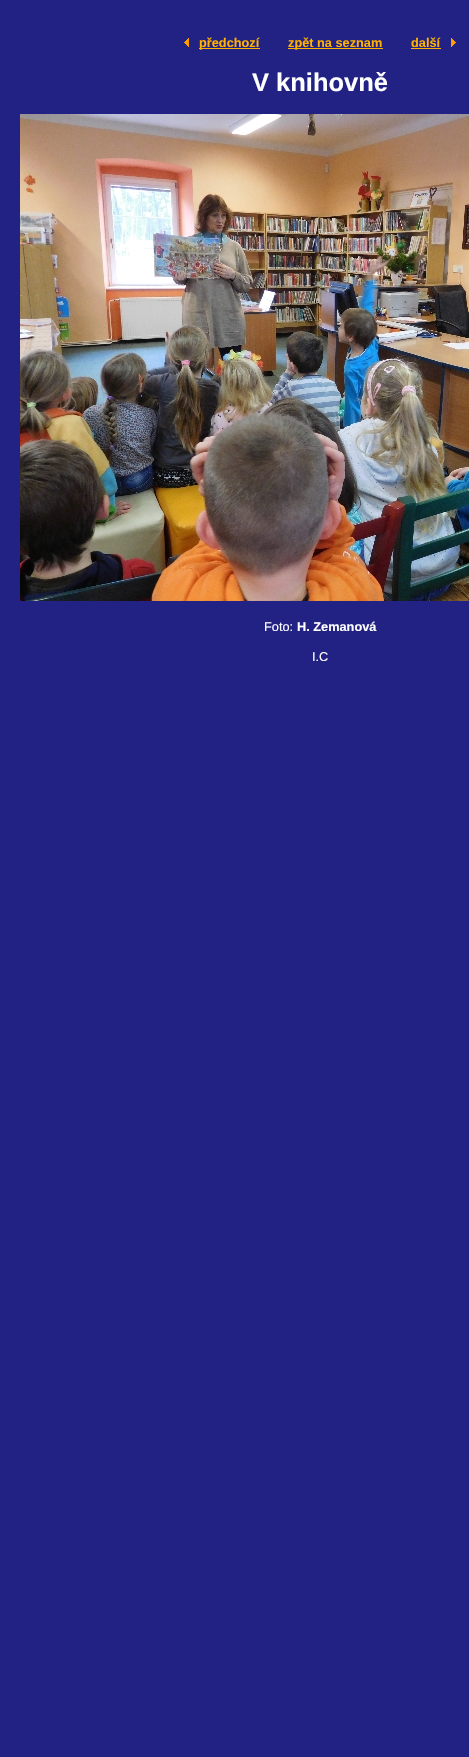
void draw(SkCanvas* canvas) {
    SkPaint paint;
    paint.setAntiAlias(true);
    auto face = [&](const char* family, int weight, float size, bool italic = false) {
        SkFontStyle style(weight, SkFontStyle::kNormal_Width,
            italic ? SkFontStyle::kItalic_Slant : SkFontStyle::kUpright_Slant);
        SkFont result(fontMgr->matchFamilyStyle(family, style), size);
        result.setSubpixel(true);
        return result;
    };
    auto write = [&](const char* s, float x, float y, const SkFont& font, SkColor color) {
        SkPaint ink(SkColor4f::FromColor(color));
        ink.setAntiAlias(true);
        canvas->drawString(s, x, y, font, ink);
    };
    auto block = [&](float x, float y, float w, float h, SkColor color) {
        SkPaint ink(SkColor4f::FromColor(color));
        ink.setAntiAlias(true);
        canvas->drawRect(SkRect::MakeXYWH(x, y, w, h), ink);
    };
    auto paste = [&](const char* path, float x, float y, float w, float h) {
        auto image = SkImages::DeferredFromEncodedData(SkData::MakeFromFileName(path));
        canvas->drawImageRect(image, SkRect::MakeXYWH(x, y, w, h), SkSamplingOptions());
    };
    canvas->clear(SkColorSetRGB(34, 34, 132));
    paste("pic1.png", 184, 38, 5, 9);
    block(199, 48, 61, 1, SkColorSetRGB(255, 178, 0));
    auto kFont1 = face("Liberation Sans", 700, 12.75f);
    write("předchozí", 199, 47, kFont1, SkColorSetRGB(255, 178, 0));
    block(288, 48, 95, 1, SkColorSetRGB(255, 178, 0));
    write("zpět na seznam", 288, 47, kFont1, SkColorSetRGB(255, 178, 0));
    write("další", 411, 47, kFont1, SkColorSetRGB(255, 178, 0));
    block(411, 48, 30, 1, SkColorSetRGB(255, 178, 0));
    paste("pic2.png", 451, 38, 5, 9);
    auto kFont2 = face("Liberation Sans", 700, 25.5f);
    write("V knihovně", 252, 91, kFont2, SK_ColorWHITE);
    paste("pic3.png", 20, 114, 449, 487);
    auto kFont3 = face("Liberation Sans", 400, 12.75f);
    write("Foto:", 264, 631, kFont3, SK_ColorWHITE);
    write("H. Zemanová", 297, 631, kFont1, SK_ColorWHITE);
    write("I.C", 312, 661, kFont3, SK_ColorWHITE);
}
